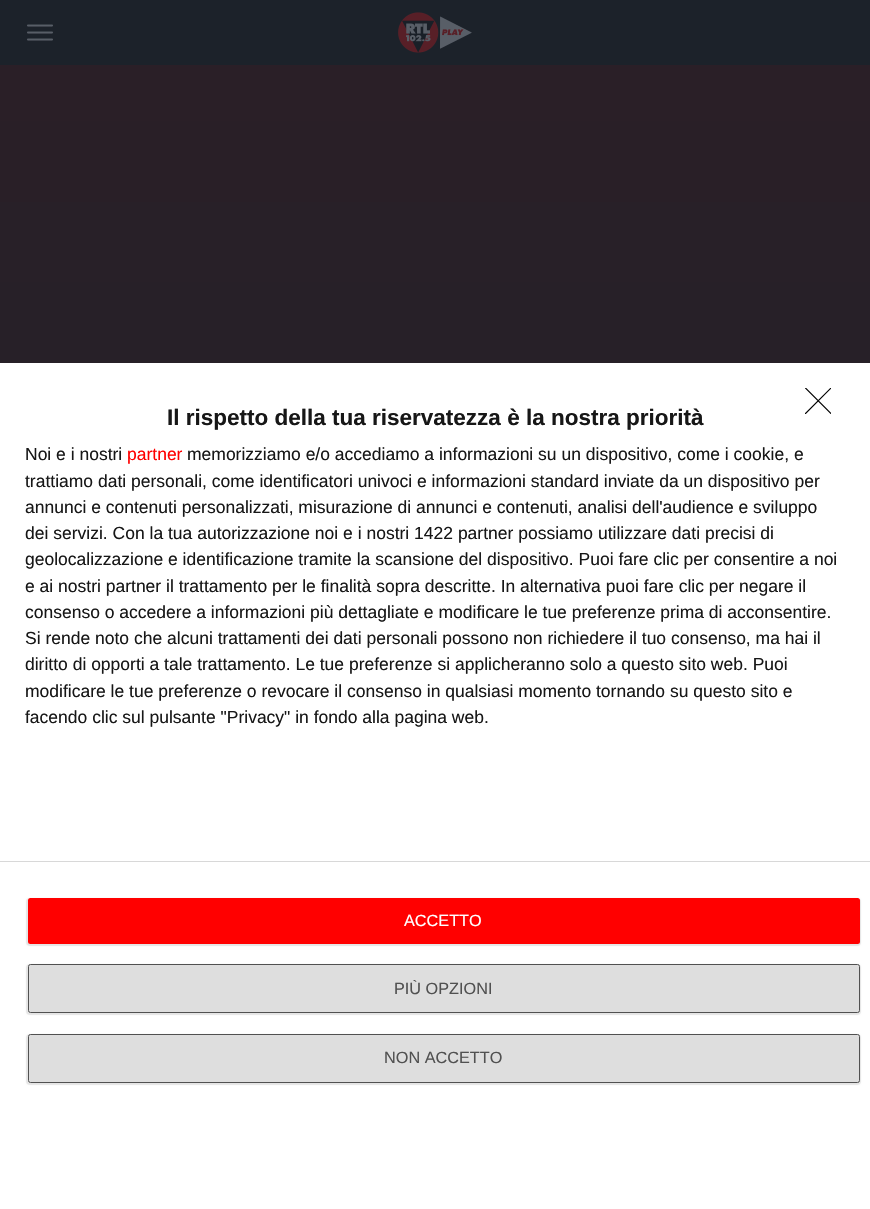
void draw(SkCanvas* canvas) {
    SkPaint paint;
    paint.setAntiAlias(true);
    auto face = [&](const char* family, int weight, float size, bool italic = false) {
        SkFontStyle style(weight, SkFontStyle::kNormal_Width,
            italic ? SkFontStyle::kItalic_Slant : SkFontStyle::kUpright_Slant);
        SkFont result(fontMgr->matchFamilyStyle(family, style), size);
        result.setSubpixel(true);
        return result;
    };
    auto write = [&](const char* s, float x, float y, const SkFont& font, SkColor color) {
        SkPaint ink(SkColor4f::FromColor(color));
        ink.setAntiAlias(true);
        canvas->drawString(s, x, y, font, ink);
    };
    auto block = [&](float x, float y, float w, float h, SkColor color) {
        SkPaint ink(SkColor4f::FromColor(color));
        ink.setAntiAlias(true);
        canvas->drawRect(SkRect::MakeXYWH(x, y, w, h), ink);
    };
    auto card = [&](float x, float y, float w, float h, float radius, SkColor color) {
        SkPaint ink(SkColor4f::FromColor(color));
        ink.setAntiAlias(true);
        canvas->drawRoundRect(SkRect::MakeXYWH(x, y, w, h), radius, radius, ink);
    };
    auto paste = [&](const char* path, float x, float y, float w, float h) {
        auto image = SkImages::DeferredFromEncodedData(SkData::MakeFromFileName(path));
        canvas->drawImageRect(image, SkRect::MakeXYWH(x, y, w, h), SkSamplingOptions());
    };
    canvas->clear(SK_ColorWHITE);
    {
        const SkColor colors[] = {SkColorSetRGB(43, 31, 39), SkColorSetRGB(28, 34, 42)};
        const float stops[] = {0, 1};
        const SkPoint ends[] = {{435, 0}, {435, 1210}};
        paint.setShader(SkGradientShader::MakeLinear(ends, colors, stops, 2, SkTileMode::kClamp));
        paint.setAlpha(255);
    }
    canvas->drawRect(SkRect::MakeXYWH(0, 65, 870, 298), paint);
    block(0, 0, 870, 65, SkColorSetRGB(28, 34, 42));
    paste("pic1.png", 27, 24, 26, 17);
    paste("pic2.png", 398, 12, 74, 41);
    canvas->save();
    canvas->clipRect(SkRect::MakeXYWH(805, 388, 26, 27));
    paint.setStyle(SkPaint::kStroke_Style);
    paint.setStrokeWidth(1.1f);
    paint.setStrokeCap(SkPaint::kRound_Cap);
    paint.setStrokeJoin(SkPaint::kRound_Join);
    paint.setShader(nullptr);
    paint.setColor(SK_ColorBLACK);
    canvas->drawPath(SkPathBuilder().moveTo(805.5f, 388).lineTo(831, 413.5f).moveTo(831, 388).lineTo(805.5f, 413.5f).detach(), paint);
    canvas->restore();
    auto kFont1 = face("Liberation Sans", 700, 22.5f);
    write("Il rispetto della tua riservatezza è la nostra priorità", 167, 425, kFont1, SkColorSetRGB(23, 23, 23));
    auto kFont2 = face("Liberation Sans", 400, 17.5f);
    write("Noi e i nostri", 25, 460, kFont2, SkColorSetRGB(23, 23, 23));
    write("partner", 127, 460, kFont2, SkColorSetRGB(255, 0, 0));
    write("memorizziamo e/o accediamo a informazioni su un dispositivo, come i cookie, e", 187, 460, kFont2, SkColorSetRGB(23, 23, 23));
    write("trattiamo dati personali, come identificatori univoci e informazioni standard inviate da un dispositivo per", 25, 487, kFont2, SkColorSetRGB(23, 23, 23));
    write("annunci e contenuti personalizzati, misurazione di annunci e contenuti, analisi dell'audience e sviluppo", 25, 513, kFont2, SkColorSetRGB(23, 23, 23));
    write("dei servizi. Con la tua autorizzazione noi e i nostri 1422 partner possiamo utilizzare dati precisi di", 25, 539, kFont2, SkColorSetRGB(23, 23, 23));
    write("geolocalizzazione e identificazione tramite la scansione del dispositivo. Puoi fare clic per consentire a noi", 25, 565, kFont2, SkColorSetRGB(23, 23, 23));
    write("e ai nostri partner il trattamento per le finalità sopra descritte. In alternativa puoi fare clic per negare il", 25, 592, kFont2, SkColorSetRGB(23, 23, 23));
    write("consenso o accedere a informazioni più dettagliate e modificare le tue preferenze prima di acconsentire.", 25, 618, kFont2, SkColorSetRGB(23, 23, 23));
    write("Si rende noto che alcuni trattamenti dei dati personali possono non richiedere il tuo consenso, ma hai il", 25, 644, kFont2, SkColorSetRGB(23, 23, 23));
    write("diritto di opporti a tale trattamento. Le tue preferenze si applicheranno solo a questo sito web. Puoi", 25, 670, kFont2, SkColorSetRGB(23, 23, 23));
    write("modificare le tue preferenze o revocare il consenso in qualsiasi momento tornando su questo sito e", 25, 697, kFont2, SkColorSetRGB(23, 23, 23));
    write("facendo clic sul pulsante \"Privacy\" in fondo alla pagina web.", 25, 723, kFont2, SkColorSetRGB(23, 23, 23));
    block(0, 861, 870, 1, SkColorSetRGB(216, 216, 216));
    paint.setStyle(SkPaint::kFill_Style);
    paint.setColor(SkColorSetARGB(26, 0, 0, 0));
    paint.setMaskFilter(SkMaskFilter::MakeBlur(kNormal_SkBlurStyle, 0.5f));
    canvas->drawRoundRect(SkRect::MakeXYWH(26, 898, 835, 48), 4, 4, paint);
    paint.setMaskFilter(nullptr);
    card(28, 898, 832, 46, 2.5f, SkColorSetRGB(255, 0, 0));
    auto kFont3 = face("Liberation Sans", 400, 16.25f);
    write("ACCETTO", 404, 926, kFont3, SK_ColorWHITE);
    paint.setMaskFilter(SkMaskFilter::MakeBlur(kNormal_SkBlurStyle, 0.5f));
    canvas->drawRoundRect(SkRect::MakeXYWH(26, 964, 835, 51), 4, 4, paint);
    paint.setMaskFilter(nullptr);
    paint.setColor(SkColorSetRGB(222, 222, 222));
    canvas->drawRoundRect(SkRect::MakeXYWH(28.5f, 964.5f, 831, 48), 2, 2, paint);
    paint.setStyle(SkPaint::kStroke_Style);
    paint.setStrokeWidth(1);
    paint.setStrokeCap(SkPaint::kButt_Cap);
    paint.setStrokeJoin(SkPaint::kMiter_Join);
    paint.setColor(SkColorSetRGB(81, 81, 81));
    canvas->drawRoundRect(SkRect::MakeXYWH(28.5f, 964.5f, 831, 48), 2, 2, paint);
    write("PIÙ OPZIONI", 394, 994, kFont3, SkColorSetRGB(81, 81, 81));
    paint.setStyle(SkPaint::kFill_Style);
    paint.setColor(SkColorSetARGB(26, 0, 0, 0));
    paint.setMaskFilter(SkMaskFilter::MakeBlur(kNormal_SkBlurStyle, 0.5f));
    canvas->drawRoundRect(SkRect::MakeXYWH(26, 1034, 835, 51), 4, 4, paint);
    paint.setMaskFilter(nullptr);
    paint.setColor(SkColorSetRGB(222, 222, 222));
    canvas->drawRoundRect(SkRect::MakeXYWH(28.5f, 1034.5f, 831, 48), 2, 2, paint);
    paint.setStyle(SkPaint::kStroke_Style);
    paint.setColor(SkColorSetRGB(81, 81, 81));
    canvas->drawRoundRect(SkRect::MakeXYWH(28.5f, 1034.5f, 831, 48), 2, 2, paint);
    write("NON ACCETTO", 384, 1063, kFont3, SkColorSetRGB(81, 81, 81));
}
